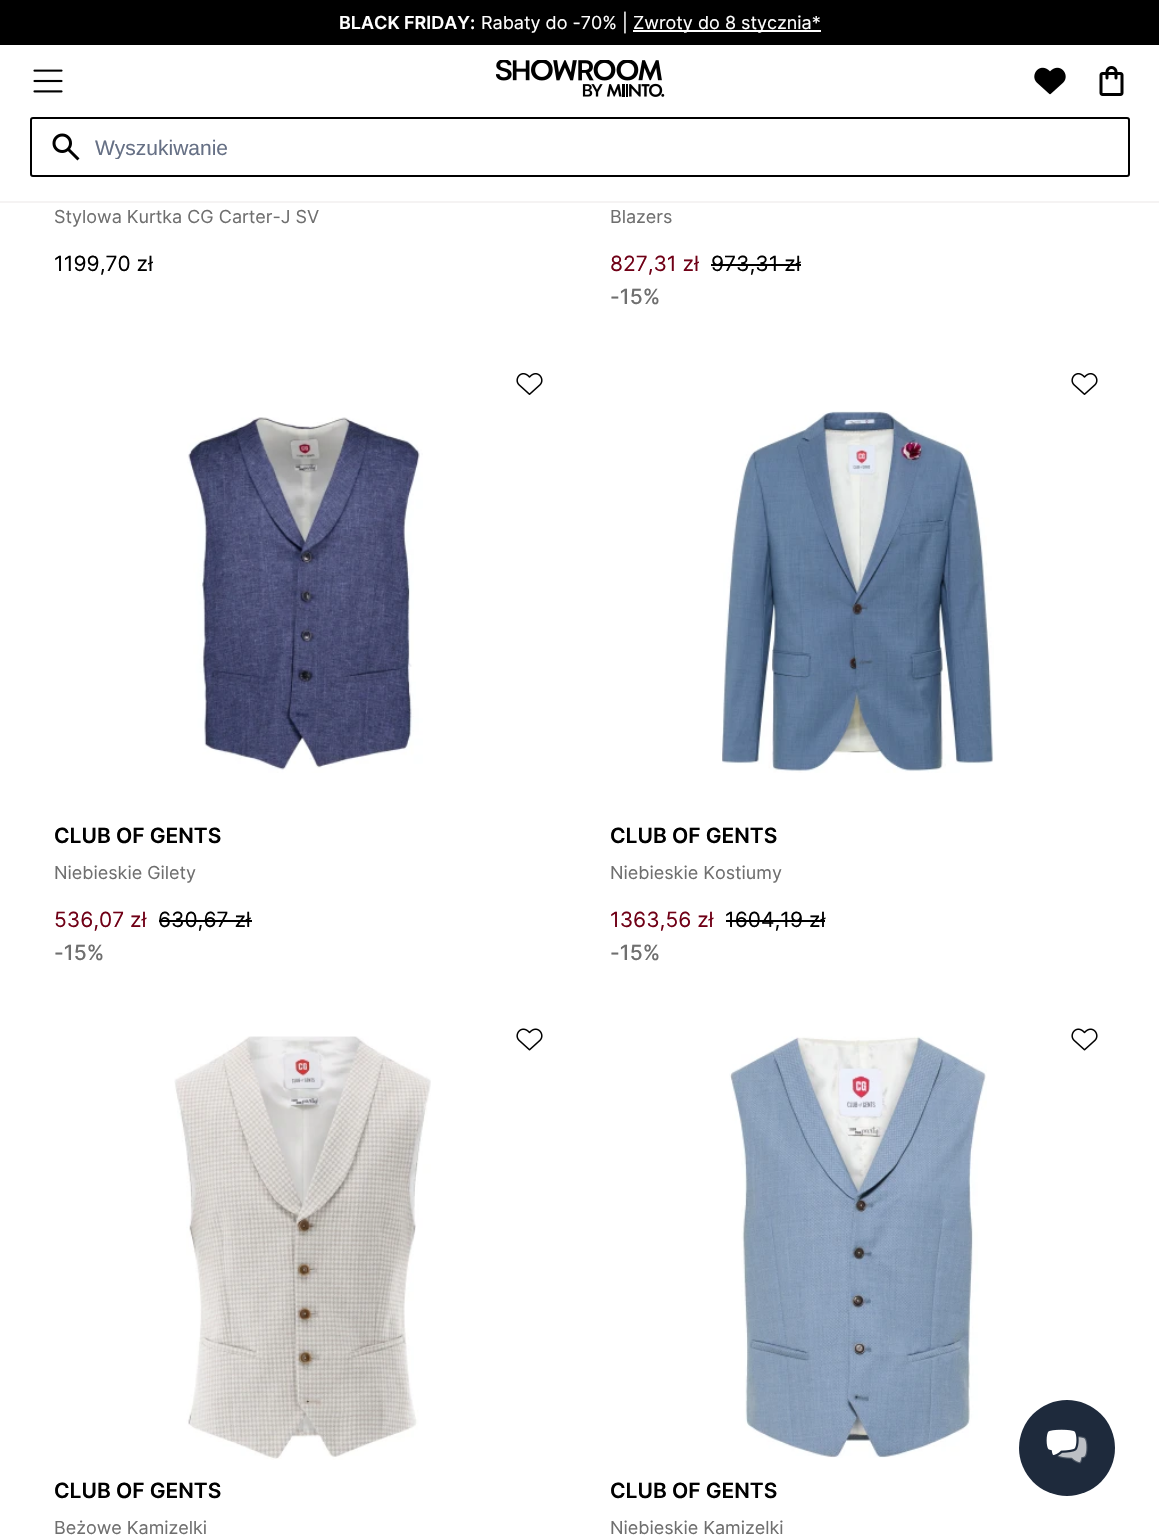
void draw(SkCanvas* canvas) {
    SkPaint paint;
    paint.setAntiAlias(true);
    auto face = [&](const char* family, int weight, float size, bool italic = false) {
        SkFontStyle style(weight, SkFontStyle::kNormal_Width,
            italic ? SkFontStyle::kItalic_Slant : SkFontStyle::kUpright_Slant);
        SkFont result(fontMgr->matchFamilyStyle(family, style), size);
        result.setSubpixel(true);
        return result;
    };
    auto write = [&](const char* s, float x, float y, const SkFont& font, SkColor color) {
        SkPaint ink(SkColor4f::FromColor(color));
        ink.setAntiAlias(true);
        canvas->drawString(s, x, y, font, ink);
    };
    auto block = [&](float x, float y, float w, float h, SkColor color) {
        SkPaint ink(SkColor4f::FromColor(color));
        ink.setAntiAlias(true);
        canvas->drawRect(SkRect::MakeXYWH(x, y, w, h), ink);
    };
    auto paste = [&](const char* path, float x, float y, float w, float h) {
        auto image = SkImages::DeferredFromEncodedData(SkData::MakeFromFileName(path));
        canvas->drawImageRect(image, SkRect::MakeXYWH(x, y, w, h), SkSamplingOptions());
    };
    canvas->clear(SK_ColorWHITE);
    block(0, 0, 1159, 45, SK_ColorBLACK);
    auto kFont1 = face("Inter", 600, 18);
    write("BLACK FRIDAY:", 339, 29, kFont1, SK_ColorWHITE);
    auto kFont2 = face("Inter", 400, 18);
    write("Rabaty do -70% |", 481, 29, kFont2, SK_ColorWHITE);
    block(633, 30, 188, 2, SK_ColorWHITE);
    write("Zwroty do 8 stycznia*", 633, 29, kFont2, SK_ColorWHITE);
    block(0, 201, 1159, 2, SkColorSetRGB(245, 243, 243));
    paste("pic1.png", 33, 69, 30, 24);
    paste("pic2.png", 495, 60, 170, 37);
    paste("pic3.png", 1034, 67, 32, 28);
    paste("pic4.png", 1099, 66, 25, 30);
    paint.setStyle(SkPaint::kStroke_Style);
    paint.setStrokeWidth(2);
    paint.setColor(SK_ColorBLACK);
    canvas->drawRoundRect(SkRect::MakeXYWH(31, 118, 1098, 58), 2, 2, paint);
    paste("pic5.png", 52, 133, 28, 28);
    canvas->save();
    canvas->clipRect(SkRect::MakeXYWH(95, 135, 970, 24));
    auto kFont3 = face("Liberation Sans", 400, 21);
    write("Wyszukiwanie", 95, 155, kFont3, SkColorSetRGB(102, 112, 133));
    canvas->restore();
    write("Stylowa Kurtka CG Carter-J SV", 54, 223, kFont2, SkColorSetRGB(111, 111, 111));
    auto kFont4 = face("Inter", 400, 21);
    write("1199,70 zł", 54, 271, kFont4, SK_ColorBLACK);
    write("Blazers", 610, 223, kFont2, SkColorSetRGB(111, 111, 111));
    write("827,31 zł", 610, 271, kFont4, SkColorSetRGB(112, 0, 22));
    write("973,31 zł", 711, 271, kFont4, SK_ColorBLACK);
    block(711, 264, 90, 2, SK_ColorBLACK);
    auto kFont5 = face("Inter", 500, 21);
    write("-15%", 610, 304, kFont5, SkColorSetRGB(111, 111, 111));
    paste("pic6.png", 516, 373, 27, 22);
    paste("pic7.png", 187, 417, 236, 356);
    auto kFont6 = face("Inter", 600, 21);
    write("CLUB OF GENTS", 54, 843, kFont6, SK_ColorBLACK);
    write("Niebieskie Gilety", 54, 879, kFont2, SkColorSetRGB(111, 111, 111));
    write("536,07 zł", 54, 927, kFont4, SkColorSetRGB(112, 0, 22));
    write("630,67 zł", 158, 927, kFont4, SK_ColorBLACK);
    block(159, 920, 93, 2, SK_ColorBLACK);
    write("-15%", 54, 960, kFont5, SkColorSetRGB(111, 111, 111));
    paste("pic6.png", 1071, 373, 27, 22);
    paste("pic8.png", 720, 411, 274, 362);
    write("CLUB OF GENTS", 610, 843, kFont6, SK_ColorBLACK);
    write("Niebieskie Kostiumy", 610, 879, kFont2, SkColorSetRGB(111, 111, 111));
    write("1363,56 zł", 610, 927, kFont4, SkColorSetRGB(112, 0, 22));
    write("1604,19 zł", 725, 927, kFont4, SK_ColorBLACK);
    block(726, 920, 99, 2, SK_ColorBLACK);
    write("-15%", 610, 960, kFont5, SkColorSetRGB(111, 111, 111));
    paste("pic9.png", 174, 1036, 257, 424);
    paste("pic10.png", 516, 1028, 27, 23);
    write("CLUB OF GENTS", 54, 1498, kFont6, SK_ColorBLACK);
    write("Beżowe Kamizelki", 54, 1534, kFont2, SkColorSetRGB(111, 111, 111));
    paste("pic11.png", 729, 1036, 258, 422);
    paste("pic10.png", 1071, 1028, 27, 23);
    write("CLUB OF GENTS", 610, 1498, kFont6, SK_ColorBLACK);
    write("Niebieskie Kamizelki", 610, 1534, kFont2, SkColorSetRGB(111, 111, 111));
    paint.setStyle(SkPaint::kFill_Style);
    paint.setColor(SkColorSetRGB(30, 42, 60));
    canvas->drawCircle(1067, 1448, 48, paint);
    paste("pic12.png", 1046, 1429, 42, 35);
}
